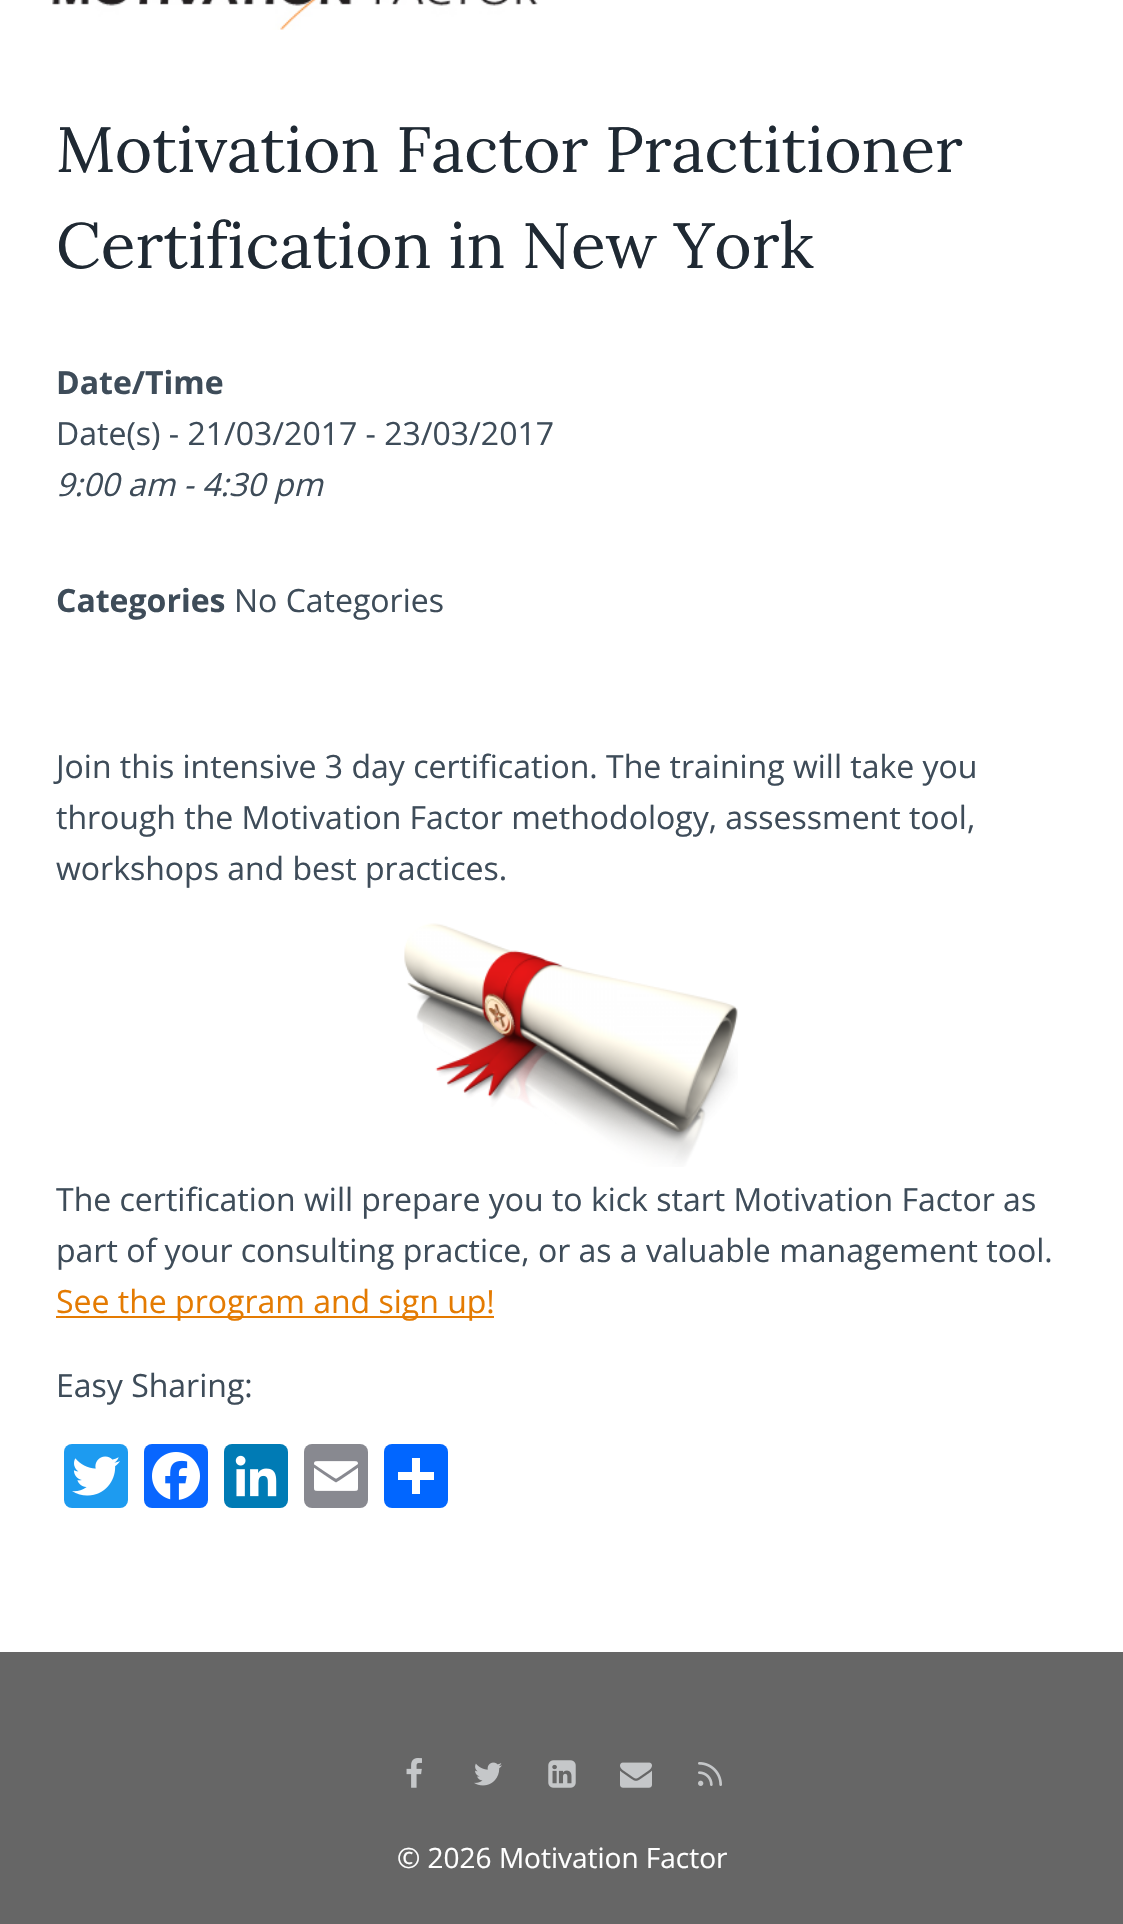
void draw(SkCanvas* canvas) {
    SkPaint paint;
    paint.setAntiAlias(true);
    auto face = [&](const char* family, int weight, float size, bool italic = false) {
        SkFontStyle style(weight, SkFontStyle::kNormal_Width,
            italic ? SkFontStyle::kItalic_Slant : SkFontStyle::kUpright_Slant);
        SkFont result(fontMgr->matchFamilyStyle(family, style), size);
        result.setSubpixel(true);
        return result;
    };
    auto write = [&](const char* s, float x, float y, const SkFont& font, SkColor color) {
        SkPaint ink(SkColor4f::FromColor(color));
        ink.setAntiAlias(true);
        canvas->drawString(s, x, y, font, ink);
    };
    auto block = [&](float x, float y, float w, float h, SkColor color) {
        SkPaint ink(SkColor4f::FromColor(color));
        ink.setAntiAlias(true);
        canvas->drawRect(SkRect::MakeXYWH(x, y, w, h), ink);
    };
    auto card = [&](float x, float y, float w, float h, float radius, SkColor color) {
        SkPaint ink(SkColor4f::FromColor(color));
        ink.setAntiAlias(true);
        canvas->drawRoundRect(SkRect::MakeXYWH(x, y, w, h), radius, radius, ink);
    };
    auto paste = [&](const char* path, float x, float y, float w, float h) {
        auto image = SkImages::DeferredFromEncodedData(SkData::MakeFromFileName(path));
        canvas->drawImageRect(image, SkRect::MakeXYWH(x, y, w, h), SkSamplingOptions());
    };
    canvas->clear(SK_ColorWHITE);
    paste("pic1.png", 52, 0, 486, 30);
    auto kFont1 = face("Lora", 400, 64);
    write("Motivation Factor Practitioner", 56, 172, kFont1, SkColorSetRGB(31, 41, 51));
    write("Certification in New York", 56, 268, kFont1, SkColorSetRGB(31, 41, 51));
    auto kFont2 = face("Open Sans", 700, 32);
    write("Date/Time", 56, 394, kFont2, SkColorSetRGB(62, 76, 89));
    auto kFont3 = face("Open Sans", 400, 32);
    write("Date(s) - 21/03/2017 - 23/03/2017", 56, 445, kFont3, SkColorSetRGB(62, 76, 89));
    auto kFont4 = face("Open Sans", 400, 32, true);
    write("9:00 am - 4:30 pm", 56, 496, kFont4, SkColorSetRGB(62, 76, 89));
    write("Categories", 56, 612, kFont2, SkColorSetRGB(62, 76, 89));
    write("No Categories", 234, 612, kFont3, SkColorSetRGB(62, 76, 89));
    write("Join this intensive 3 day certification. The training will take you", 56, 778, kFont3, SkColorSetRGB(62, 76, 89));
    write("through the Motivation Factor methodology, assessment tool,", 56, 829, kFont3, SkColorSetRGB(62, 76, 89));
    write("workshops and best practices.", 56, 880, kFont3, SkColorSetRGB(62, 76, 89));
    paste("pic2.png", 404, 923, 334, 244);
    write("The certification will prepare you to kick start Motivation Factor as", 56, 1211, kFont3, SkColorSetRGB(62, 76, 89));
    write("part of your consulting practice, or as a valuable management tool.", 56, 1262, kFont3, SkColorSetRGB(62, 76, 89));
    block(56, 1316, 438, 2, SkColorSetRGB(228, 123, 2));
    write("See the program and sign up!", 56, 1313, kFont3, SkColorSetRGB(228, 123, 2));
    write("Easy Sharing:", 56, 1397, kFont3, SkColorSetRGB(62, 76, 89));
    card(64, 1444, 64, 64, 8, SkColorSetRGB(29, 155, 240));
    paste("pic3.png", 72, 1456, 48, 40);
    card(144, 1444, 64, 64, 8, SkColorSetRGB(8, 102, 255));
    paste("pic4.png", 152, 1452, 48, 48);
    card(224, 1444, 64, 64, 8, SkColorSetRGB(0, 123, 181));
    paste("pic5.png", 235, 1455, 42, 42);
    card(304, 1444, 64, 64, 8, SkColorSetRGB(136, 137, 144));
    paste("pic6.png", 314, 1461, 44, 30);
    card(384, 1444, 64, 64, 8, SkColorSetRGB(1, 102, 255));
    block(412, 1458, 8, 36, SK_ColorWHITE);
    block(398, 1472, 36, 8, SK_ColorWHITE);
    block(0, 1652, 1123, 272, SkColorSetRGB(102, 102, 102));
    paste("pic7.png", 406, 1758, 16, 30);
    paste("pic8.png", 474, 1762, 28, 24);
    paste("pic9.png", 548, 1760, 28, 28);
    paste("pic10.png", 620, 1762, 32, 26);
    paste("pic11.png", 698, 1762, 24, 24);
    auto kFont5 = face("Open Sans", 400, 28);
    write("© 2026 Motivation Factor", 397, 1868, kFont5, SK_ColorWHITE);
}
